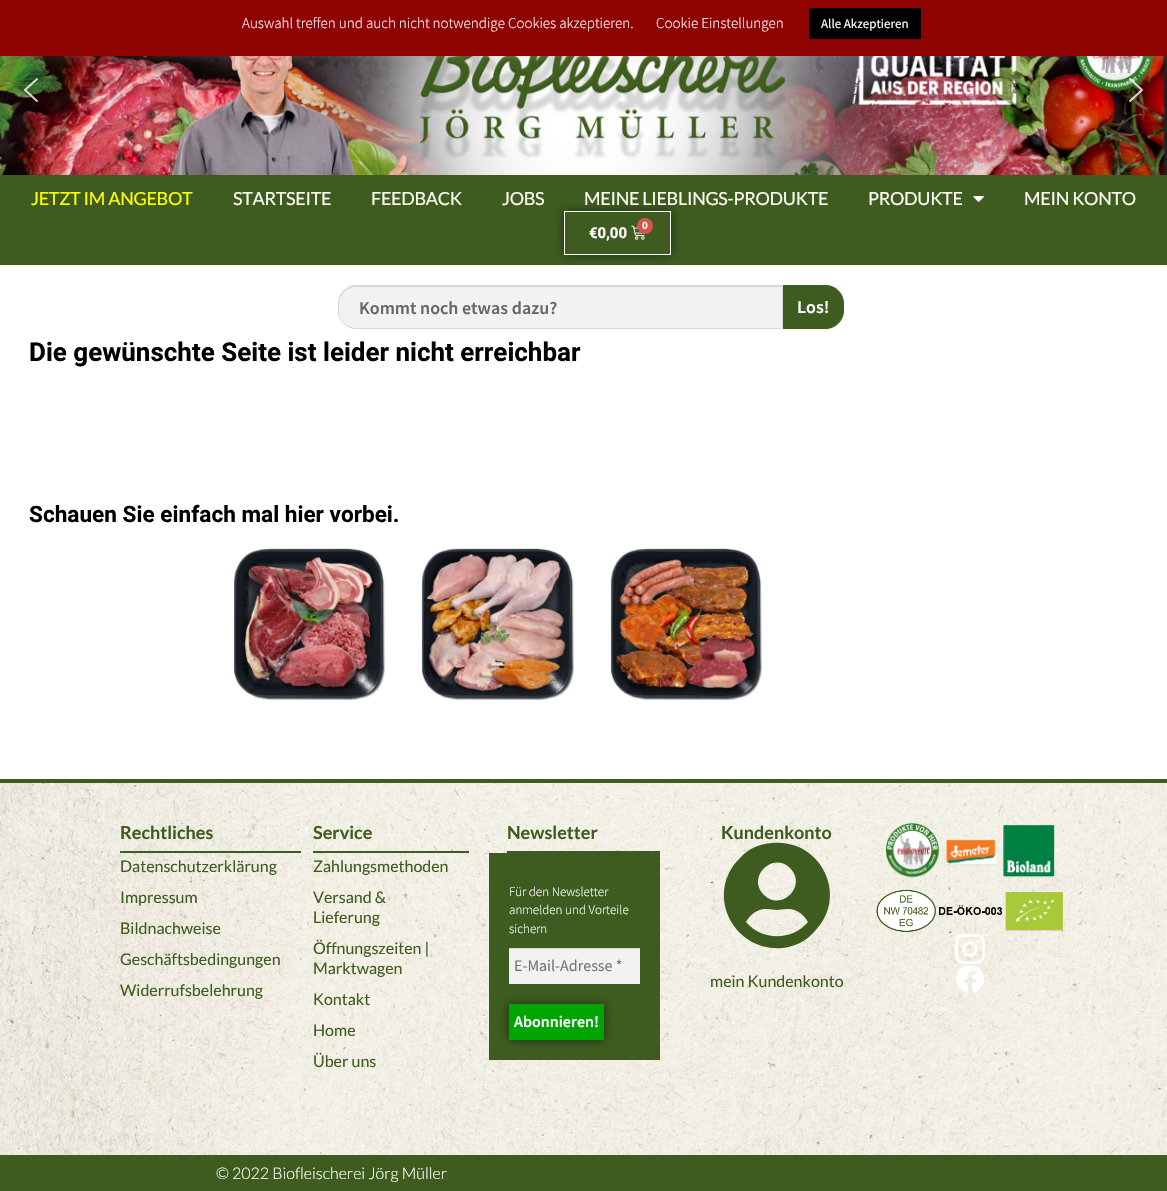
void draw(SkCanvas* canvas) {
    SkPaint paint;
    paint.setAntiAlias(true);
    auto face = [&](const char* family, int weight, float size, bool italic = false) {
        SkFontStyle style(weight, SkFontStyle::kNormal_Width,
            italic ? SkFontStyle::kItalic_Slant : SkFontStyle::kUpright_Slant);
        SkFont result(fontMgr->matchFamilyStyle(family, style), size);
        result.setSubpixel(true);
        return result;
    };
    auto write = [&](const char* s, float x, float y, const SkFont& font, SkColor color) {
        SkPaint ink(SkColor4f::FromColor(color));
        ink.setAntiAlias(true);
        canvas->drawString(s, x, y, font, ink);
    };
    auto writeSpaced = [&](const char* s, float x, float y, const SkFont& font, const SkPaint& ink, float letter, float word) {
        std::vector<SkGlyphID> glyphs(font.countText(s, strlen(s), SkTextEncoding::kUTF8));
        std::vector<float> xs(glyphs.size());
        font.textToGlyphs(s, strlen(s), SkTextEncoding::kUTF8, glyphs);
        font.getXPos(glyphs, xs, x);
        float extra = 0;
        for (size_t i = 0; i < glyphs.size(); i++) {
            xs[i] += extra;
            extra += letter + word * (glyphs[i] == font.unicharToGlyph(' '));
        }
        canvas->drawTextBlob(SkTextBlob::MakeFromPosHGlyphs(glyphs, xs, y, font), 0, 0, ink);
    };
    auto block = [&](float x, float y, float w, float h, SkColor color) {
        SkPaint ink(SkColor4f::FromColor(color));
        ink.setAntiAlias(true);
        canvas->drawRect(SkRect::MakeXYWH(x, y, w, h), ink);
    };
    auto paste = [&](const char* path, float x, float y, float w, float h) {
        auto image = SkImages::DeferredFromEncodedData(SkData::MakeFromFileName(path));
        canvas->drawImageRect(image, SkRect::MakeXYWH(x, y, w, h), SkSamplingOptions());
    };
    canvas->clear(SK_ColorWHITE);
    paste("pic1.png", 0, 56, 1167, 119);
    paint.setColor(SkColorSetARGB(77, 172, 171, 171));
    paint.setMaskFilter(SkMaskFilter::MakeBlur(kNormal_SkBlurStyle, 5));
    canvas->drawRect(SkRect::MakeXYWH(0, -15, 1167, 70), paint);
    paint.setMaskFilter(nullptr);
    paint.setColor(SkColorSetARGB(128, 0, 0, 0));
    paint.setMaskFilter(SkMaskFilter::MakeBlur(kNormal_SkBlurStyle, 5));
    canvas->drawRect(SkRect::MakeXYWH(0, 11, 145, 40), paint);
    paint.setMaskFilter(nullptr);
    block(0, 0, 1167, 56, SkColorSetRGB(143, 2, 2));
    auto kFont1 = face("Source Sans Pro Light", 300, 15);
    write("Auswahl treffen und auch nicht notwendige Cookies akzeptieren.", 242, 28, kFont1, SK_ColorWHITE);
    write("Cookie Einstellungen", 656, 28, kFont1, SK_ColorWHITE);
    block(809, 8, 112, 31, SK_ColorBLACK);
    auto kFont2 = face("Source Sans Pro", 400, 13);
    write("Alle Akzeptieren", 821, 28, kFont2, SK_ColorWHITE);
    paste("pic2.png", 24, 78, 14, 24);
    paste("pic3.png", 1129, 78, 14, 24);
    block(0, 175, 1167, 90, SkColorSetRGB(62, 92, 32));
    auto kFont3 = face("Lato", 400, 18);
    paint.setColor(SkColorSetRGB(255, 255, 0));
    writeSpaced("JETZT IM ANGEBOT", 31, 205, kFont3, paint, -0.3f, 0);
    paint.setColor(SkColorSetRGB(255, 255, 245));
    writeSpaced("STARTSEITE", 233, 205, kFont3, paint, -0.3f, 0);
    writeSpaced("FEEDBACK", 371, 205, kFont3, paint, -0.3f, 0);
    writeSpaced("JOBS", 502, 205, kFont3, paint, -0.3f, 0);
    canvas->save();
    canvas->clipPath(SkPathBuilder(SkPathFillType::kEvenOdd).moveTo(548, 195).lineTo(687, 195).lineTo(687, 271).lineTo(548, 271).close().moveTo(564, 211).lineTo(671, 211).lineTo(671, 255).lineTo(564, 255).close().detach(), true);
    paint.setColor(SkColorSetARGB(128, 0, 0, 0));
    paint.setMaskFilter(SkMaskFilter::MakeBlur(kNormal_SkBlurStyle, 5));
    canvas->drawRect(SkRect::MakeXYWH(564, 211, 107, 44), paint);
    paint.setMaskFilter(nullptr);
    canvas->restore();
    paint.setColor(SkColorSetRGB(255, 255, 245));
    writeSpaced("MEINE LIEBLINGS-PRODUKTE", 584, 205, kFont3, paint, -0.3f, 0);
    writeSpaced("PRODUKTE", 868, 205, kFont3, paint, -0.3f, 0);
    paste("pic4.png", 973, 196, 11, 6);
    writeSpaced("MEIN KONTO", 1024, 205, kFont3, paint, -0.3f, 0);
    paint.setStyle(SkPaint::kStroke_Style);
    paint.setStrokeWidth(1);
    paint.setColor(SK_ColorWHITE);
    canvas->drawRect(SkRect::MakeXYWH(564.5f, 211.5f, 106, 43), paint);
    paste("pic5.png", 631, 225, 14, 15);
    paint.setStyle(SkPaint::kFill_Style);
    paint.setColor(SkColorSetRGB(217, 83, 79));
    canvas->drawCircle(645, 226, 8, paint);
    auto kFont4 = face("Roboto", 700, 10);
    write("0", 642, 229, kFont4, SK_ColorWHITE);
    auto kFont5 = face("Roboto", 700, 15);
    write("€0,00", 589, 238, kFont5, SK_ColorWHITE);
    paint.setColor(SkColorSetRGB(62, 92, 32));
    canvas->drawPath(SkPathBuilder().moveTo(782.5f, 285.5f).lineTo(826, 285.5f).cubicTo(835.5f, 285.5f, 843.5f, 293.5f, 843.5f, 303).lineTo(843.5f, 311).cubicTo(843.5f, 320.5f, 835.5f, 328.5f, 826, 328.5f).lineTo(782.5f, 328.5f).close().detach(), paint);
    paint.setStyle(SkPaint::kStroke_Style);
    canvas->drawPath(SkPathBuilder().moveTo(782.5f, 285.5f).lineTo(826, 285.5f).cubicTo(835.5f, 285.5f, 843.5f, 293.5f, 843.5f, 303).lineTo(843.5f, 311).cubicTo(843.5f, 320.5f, 835.5f, 328.5f, 826, 328.5f).lineTo(782.5f, 328.5f).close().detach(), paint);
    paint.setStyle(SkPaint::kFill_Style);
    paint.setColor(SkColorSetRGB(242, 242, 242));
    canvas->drawPath(SkPathBuilder().moveTo(356, 285).lineTo(783, 285).lineTo(783, 329).lineTo(356, 329).cubicTo(346, 329, 338, 321, 338, 311).lineTo(338, 303).cubicTo(338, 293, 346, 285, 356, 285).close().detach(), paint);
    paint.setColor(SkColorSetRGB(212, 212, 212));
    canvas->drawPath(SkPathBuilder().moveTo(356, 287).lineTo(782, 287).lineTo(782, 286).lineTo(356, 286).cubicTo(347, 286, 339, 294, 339, 303).lineTo(339, 304).cubicTo(339, 295, 347, 287, 356, 287).close().detach(), paint);
    paint.setStyle(SkPaint::kStroke_Style);
    paint.setColor(SkColorSetRGB(216, 216, 216));
    canvas->drawPath(SkPathBuilder().moveTo(356, 285.5f).lineTo(782.5f, 285.5f).lineTo(782.5f, 328.5f).lineTo(356, 328.5f).cubicTo(346.5f, 328.5f, 338.5f, 320.5f, 338.5f, 311).lineTo(338.5f, 303).cubicTo(338.5f, 293.5f, 346.5f, 285.5f, 356, 285.5f).close().detach(), paint);
    auto kFont6 = face("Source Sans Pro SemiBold", 600, 18);
    write("Kommt noch etwas dazu?", 359, 314, kFont6, SkColorSetRGB(102, 102, 102));
    write("Los!", 797, 313, kFont6, SK_ColorWHITE);
    auto kFont7 = face("Roboto", 700, 26);
    write("Die gewünschte Seite ist leider nicht erreichbar", 29, 361, kFont7, SK_ColorBLACK);
    auto kFont8 = face("Roboto", 700, 22.6f);
    write("Schauen Sie einfach mal hier vorbei.", 29, 522, kFont8, SK_ColorBLACK);
    paste("pic6.png", 233, 548, 152, 152);
    paste("pic7.png", 421, 548, 153, 152);
    paste("pic8.png", 610, 548, 152, 152);
    paste("pic9.png", 0, 783, 1167, 372);
    block(0, 779, 1167, 4, SkColorSetRGB(62, 92, 32));
    block(120, 851, 181, 2, SkColorSetRGB(62, 92, 32));
    auto kFont9 = face("Lato", 700, 18);
    write("Rechtliches", 120, 839, kFont9, SkColorSetRGB(62, 92, 32));
    auto kFont10 = face("Lato", 400, 16);
    write("Datenschutzerklärung", 120, 872, kFont10, SkColorSetRGB(62, 92, 32));
    write("Impressum", 120, 903, kFont10, SkColorSetRGB(62, 92, 32));
    write("Bildnachweise", 120, 934, kFont10, SkColorSetRGB(62, 92, 32));
    write("Geschäftsbedingungen", 120, 965, kFont10, SkColorSetRGB(62, 92, 32));
    write("Widerrufsbelehrung", 120, 996, kFont10, SkColorSetRGB(62, 92, 32));
    block(313, 851, 156, 2, SkColorSetRGB(62, 92, 32));
    write("Service", 313, 839, kFont9, SkColorSetRGB(62, 92, 32));
    write("Zahlungsmethoden", 313, 872, kFont10, SkColorSetRGB(62, 92, 32));
    write("Versand &", 313, 903, kFont10, SkColorSetRGB(62, 92, 32));
    write("Lieferung", 313, 923, kFont10, SkColorSetRGB(62, 92, 32));
    write("Öffnungszeiten |", 313, 954, kFont10, SkColorSetRGB(62, 92, 32));
    write("Marktwagen", 313, 974, kFont10, SkColorSetRGB(62, 92, 32));
    write("Kontakt", 313, 1005, kFont10, SkColorSetRGB(62, 92, 32));
    write("Home", 313, 1036, kFont10, SkColorSetRGB(62, 92, 32));
    write("Über uns", 313, 1067, kFont10, SkColorSetRGB(62, 92, 32));
    block(507, 851, 153, 2, SkColorSetRGB(62, 92, 32));
    write("Newsletter", 507, 839, kFont9, SkColorSetRGB(62, 92, 32));
    block(489, 853, 171, 207, SkColorSetRGB(62, 92, 32));
    auto kFont11 = face("Source Sans Pro Light", 300, 13);
    write("Für den Newsletter", 509, 896, kFont11, SK_ColorWHITE);
    write("anmelden und Vorteile", 509, 914, kFont11, SK_ColorWHITE);
    write("sichern", 509, 933, kFont11, SK_ColorWHITE);
    block(509, 949, 131, 35, SkColorSetRGB(242, 242, 242));
    block(509, 948, 131, 1, SkColorSetRGB(212, 212, 212));
    auto kFont12 = face("Source Sans Pro", 400, 16);
    write("E-Mail-Adresse *", 514, 971, kFont12, SkColorSetRGB(117, 117, 117));
    paint.setStyle(SkPaint::kFill_Style);
    paint.setColor(SkColorSetARGB(128, 0, 0, 0));
    paint.setMaskFilter(SkMaskFilter::MakeBlur(kNormal_SkBlurStyle, 5));
    canvas->drawRect(SkRect::MakeXYWH(509, 1004, 95, 36), paint);
    paint.setMaskFilter(nullptr);
    block(509, 1004, 95, 36, SkColorSetRGB(0, 165, 2));
    auto kFont13 = face("Source Sans Pro SemiBold", 600, 16);
    write("Abonnieren!", 514, 1027, kFont13, SK_ColorWHITE);
    write("Kundenkonto", 721, 839, kFont9, SkColorSetRGB(62, 92, 32));
    paint.setColor(SkColorSetRGB(62, 92, 32));
    canvas->drawPath(SkPathBuilder().moveTo(740, 858).cubicTo(748, 849, 759, 844, 772, 843).cubicTo(821, 838, 850, 897, 814, 932).cubicTo(806, 941, 795, 947, 782, 948).cubicTo(733, 952, 704, 893, 740, 858).close().moveTo(790, 868).cubicTo(773, 851, 746, 877, 764, 895).cubicTo(781, 912, 808, 886, 790, 868).close().moveTo(746, 922).cubicTo(762, 941, 792, 941, 808, 922).cubicTo(804, 914, 795, 908, 787, 909).cubicTo(783, 909, 780, 910, 777, 910).cubicTo(774, 910, 771, 909, 767, 909).cubicTo(759, 908, 750, 914, 746, 922).close().detach(), paint);
    write("mein Kundenkonto", 710, 987, kFont10, SkColorSetRGB(62, 92, 32));
    paste("pic10.png", 886, 823, 169, 55);
    paste("pic11.png", 876, 889, 187, 44);
    paste("pic12.png", 955, 934, 30, 30);
    paste("pic13.png", 956, 965, 28, 28);
    block(0, 1155, 1167, 36, SkColorSetRGB(62, 92, 32));
    auto kFont14 = face("Lato", 300, 16);
    write("© 2022 Biofleischerei Jörg Müller", 216, 1179, kFont14, SkColorSetRGB(255, 255, 245));
}
